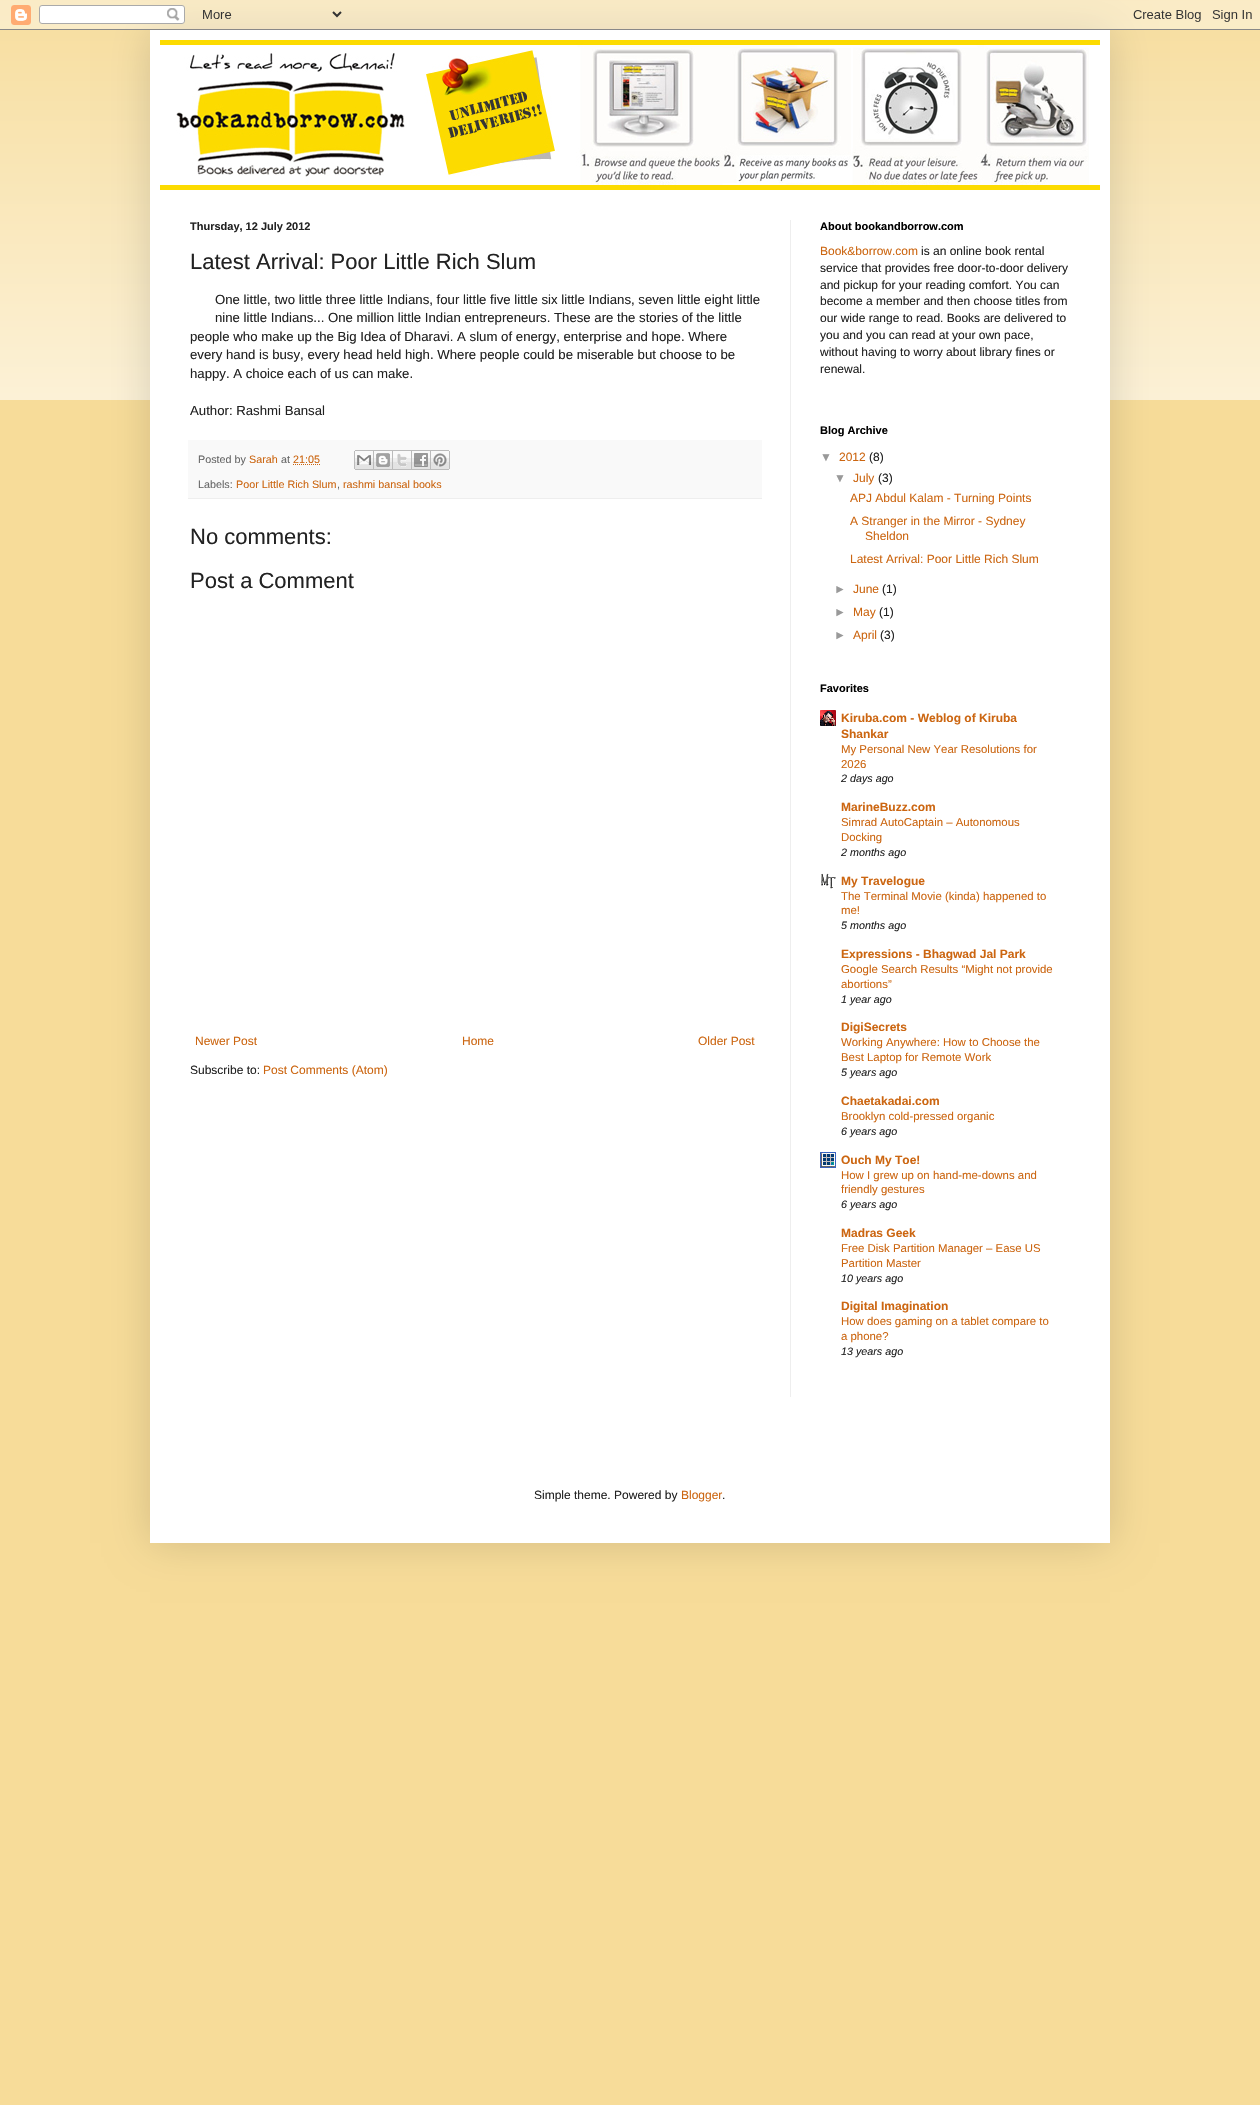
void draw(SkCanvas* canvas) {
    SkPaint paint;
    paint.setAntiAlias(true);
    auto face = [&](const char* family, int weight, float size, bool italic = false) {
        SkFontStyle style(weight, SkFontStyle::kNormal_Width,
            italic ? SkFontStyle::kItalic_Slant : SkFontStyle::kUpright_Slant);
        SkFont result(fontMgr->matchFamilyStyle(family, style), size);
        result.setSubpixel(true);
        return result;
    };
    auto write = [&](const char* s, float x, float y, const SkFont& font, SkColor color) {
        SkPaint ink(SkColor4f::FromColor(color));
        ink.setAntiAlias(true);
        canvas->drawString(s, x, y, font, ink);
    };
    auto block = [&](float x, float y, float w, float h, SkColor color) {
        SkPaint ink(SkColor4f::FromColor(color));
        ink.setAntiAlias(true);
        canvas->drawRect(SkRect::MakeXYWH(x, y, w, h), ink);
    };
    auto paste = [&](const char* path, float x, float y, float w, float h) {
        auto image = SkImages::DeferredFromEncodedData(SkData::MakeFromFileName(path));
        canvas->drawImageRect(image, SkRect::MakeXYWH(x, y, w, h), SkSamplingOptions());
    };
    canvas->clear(SkColorSetRGB(247, 220, 153));
    paste("pic1.png", 0, 0, 1260, 400);
    paint.setColor(SkColorSetARGB(38, 0, 0, 0));
    paint.setMaskFilter(SkMaskFilter::MakeBlur(kNormal_SkBlurStyle, 20));
    canvas->drawRect(SkRect::MakeXYWH(150, 30, 960, 1513), paint);
    paint.setMaskFilter(nullptr);
    paste("pic2.png", 0, 0, 1260, 30);
    block(150, 30, 960, 1513, SK_ColorWHITE);
    paste("pic3.png", 160, 40, 940, 150);
    block(790, 220, 1, 1177, SkColorSetRGB(238, 238, 238));
    auto kFont1 = face("Liberation Sans", 700, 11);
    write("Thursday, 12 July 2012", 190, 230, kFont1, SkColorSetRGB(34, 34, 34));
    auto kFont2 = face("Liberation Sans", 400, 22);
    write("Latest Arrival: Poor Little Rich Slum", 190, 269, kFont2, SkColorSetRGB(34, 34, 34));
    auto kFont3 = face("Liberation Sans", 400, 13.2f);
    write("One little, two little three little Indians, four little five little six little Indians, seven little eight little", 215, 304, kFont3, SkColorSetRGB(34, 34, 34));
    write("nine little Indians... One million little Indian entrepreneurs. These are the stories of the little", 215, 322, kFont3, SkColorSetRGB(34, 34, 34));
    write("people who make up the Big Idea of Dharavi. A slum of energy, enterprise and hope. Where", 190, 341, kFont3, SkColorSetRGB(34, 34, 34));
    write("every hand is busy, every head held high. Where people could be miserable but choose to be", 190, 359, kFont3, SkColorSetRGB(34, 34, 34));
    write("happy. A choice each of us can make.", 190, 378, kFont3, SkColorSetRGB(34, 34, 34));
    write("Author: Rashmi Bansal", 190, 415, kFont3, SkColorSetRGB(34, 34, 34));
    block(188, 440, 574, 58, SkColorSetRGB(249, 249, 249));
    block(188, 498, 574, 1, SkColorSetRGB(238, 238, 238));
    auto kFont4 = face("Liberation Sans", 400, 10.75f);
    write("Posted by", 198, 463, kFont4, SkColorSetRGB(102, 102, 102));
    write("Sarah", 249, 463, kFont4, SkColorSetRGB(204, 102, 17));
    write("at", 281, 463, kFont4, SkColorSetRGB(102, 102, 102));
    write("21:05", 293, 463, kFont4, SkColorSetRGB(204, 102, 17));
    paint.setStyle(SkPaint::kStroke_Style);
    paint.setStrokeWidth(1);
    paint.setColor(SkColorSetRGB(204, 102, 17));
    paint.setPathEffect(SkDashPathEffect::Make({{1, 1}}, 0));
    canvas->drawPath(SkPathBuilder().moveTo(293, 464.5f).lineTo(320, 464.5f).detach(), paint);
    paint.setPathEffect(nullptr);
    paste("pic4.png", 354, 450, 20, 20);
    paste("pic5.png", 374, 450, 19, 20);
    paste("pic6.png", 393, 450, 19, 20);
    paste("pic7.png", 412, 450, 19, 20);
    paste("pic8.png", 431, 450, 19, 20);
    write("Labels:", 198, 488, kFont4, SkColorSetRGB(102, 102, 102));
    write("Poor Little Rich Slum", 236, 488, kFont4, SkColorSetRGB(204, 102, 17));
    write(",", 337, 488, kFont4, SkColorSetRGB(102, 102, 102));
    write("rashmi bansal books", 343, 488, kFont4, SkColorSetRGB(204, 102, 17));
    write("No comments:", 190, 544, kFont2, SkColorSetRGB(34, 34, 34));
    write("Post a Comment", 190, 588, kFont2, SkColorSetRGB(34, 34, 34));
    auto kFont5 = face("Liberation Sans", 400, 12);
    write("Newer Post", 195, 1045, kFont5, SkColorSetRGB(204, 102, 17));
    write("Home", 462, 1045, kFont5, SkColorSetRGB(204, 102, 17));
    write("Older Post", 698, 1045, kFont5, SkColorSetRGB(204, 102, 17));
    write("Subscribe to:", 190, 1074, kFont5, SkColorSetRGB(34, 34, 34));
    write("Post Comments (Atom)", 263, 1074, kFont5, SkColorSetRGB(204, 102, 17));
    write("About bookandborrow.com", 820, 230, kFont1, SK_ColorBLACK);
    write("Book&borrow.com", 820, 255, kFont5, SkColorSetRGB(204, 102, 17));
    write("is an online book rental", 921, 255, kFont5, SkColorSetRGB(34, 34, 34));
    write("service that provides free door-to-door delivery", 820, 272, kFont5, SkColorSetRGB(34, 34, 34));
    write("and pickup for your reading comfort. You can", 820, 289, kFont5, SkColorSetRGB(34, 34, 34));
    write("become a member and then choose titles from", 820, 305, kFont5, SkColorSetRGB(34, 34, 34));
    write("our wide range to read. Books are delivered to", 820, 322, kFont5, SkColorSetRGB(34, 34, 34));
    write("you and you can read at your own pace,", 820, 339, kFont5, SkColorSetRGB(34, 34, 34));
    write("without having to worry about library fines or", 820, 356, kFont5, SkColorSetRGB(34, 34, 34));
    write("renewal.", 820, 373, kFont5, SkColorSetRGB(34, 34, 34));
    write("Blog Archive", 820, 434, kFont1, SK_ColorBLACK);
    write("▼", 820, 461, kFont5, SkColorSetRGB(153, 153, 153));
    write("2012", 839, 461, kFont5, SkColorSetRGB(204, 102, 17));
    write("(8)", 869, 461, kFont5, SkColorSetRGB(34, 34, 34));
    write("▼", 834, 482, kFont5, SkColorSetRGB(153, 153, 153));
    write("July", 853, 482, kFont5, SkColorSetRGB(204, 102, 17));
    write("(3)", 878, 482, kFont5, SkColorSetRGB(34, 34, 34));
    write("APJ Abdul Kalam - Turning Points", 850, 502, kFont5, SkColorSetRGB(204, 102, 17));
    write("A Stranger in the Mirror - Sydney", 850, 525, kFont5, SkColorSetRGB(204, 102, 17));
    write("Sheldon", 865, 540, kFont5, SkColorSetRGB(204, 102, 17));
    write("Latest Arrival: Poor Little Rich Slum", 850, 563, kFont5, SkColorSetRGB(204, 102, 17));
    write("►", 834, 593, kFont5, SkColorSetRGB(153, 153, 153));
    write("June", 853, 593, kFont5, SkColorSetRGB(204, 102, 17));
    write("(1)", 882, 593, kFont5, SkColorSetRGB(34, 34, 34));
    write("►", 834, 616, kFont5, SkColorSetRGB(153, 153, 153));
    write("May", 853, 616, kFont5, SkColorSetRGB(204, 102, 17));
    write("(1)", 879, 616, kFont5, SkColorSetRGB(34, 34, 34));
    write("►", 834, 639, kFont5, SkColorSetRGB(153, 153, 153));
    write("April", 853, 639, kFont5, SkColorSetRGB(204, 102, 17));
    write("(3)", 880, 639, kFont5, SkColorSetRGB(34, 34, 34));
    write("Favorites", 820, 692, kFont1, SK_ColorBLACK);
    paste("pic9.png", 820, 710, 16, 16);
    auto kFont6 = face("Liberation Sans", 700, 12);
    write("Kiruba.com - Weblog of Kiruba", 841, 722, kFont6, SkColorSetRGB(204, 102, 17));
    write("Shankar", 841, 738, kFont6, SkColorSetRGB(204, 102, 17));
    auto kFont7 = face("Liberation Sans", 400, 11.4f);
    write("My Personal New Year Resolutions for", 841, 753, kFont7, SkColorSetRGB(204, 102, 17));
    write("2026", 841, 768, kFont7, SkColorSetRGB(204, 102, 17));
    auto kFont8 = face("Liberation Sans", 400, 10.75f, true);
    write("2 days ago", 841, 782, kFont8, SkColorSetRGB(34, 34, 34));
    write("MarineBuzz.com", 841, 811, kFont6, SkColorSetRGB(204, 102, 17));
    write("Simrad AutoCaptain – Autonomous", 841, 826, kFont7, SkColorSetRGB(204, 102, 17));
    write("Docking", 841, 841, kFont7, SkColorSetRGB(204, 102, 17));
    write("2 months ago", 841, 856, kFont8, SkColorSetRGB(34, 34, 34));
    paste("pic10.png", 821, 873, 15, 16);
    write("My Travelogue", 841, 885, kFont6, SkColorSetRGB(204, 102, 17));
    write("The Terminal Movie (kinda) happened to", 841, 900, kFont7, SkColorSetRGB(204, 102, 17));
    write("me!", 841, 914, kFont7, SkColorSetRGB(204, 102, 17));
    write("5 months ago", 841, 929, kFont8, SkColorSetRGB(34, 34, 34));
    write("Expressions - Bhagwad Jal Park", 841, 958, kFont6, SkColorSetRGB(204, 102, 17));
    write("Google Search Results “Might not provide", 841, 973, kFont7, SkColorSetRGB(204, 102, 17));
    write("abortions”", 841, 988, kFont7, SkColorSetRGB(204, 102, 17));
    write("1 year ago", 841, 1003, kFont8, SkColorSetRGB(34, 34, 34));
    write("DigiSecrets", 841, 1031, kFont6, SkColorSetRGB(204, 102, 17));
    write("Working Anywhere: How to Choose the", 841, 1046, kFont7, SkColorSetRGB(204, 102, 17));
    write("Best Laptop for Remote Work", 841, 1061, kFont7, SkColorSetRGB(204, 102, 17));
    write("5 years ago", 841, 1076, kFont8, SkColorSetRGB(34, 34, 34));
    write("Chaetakadai.com", 841, 1105, kFont6, SkColorSetRGB(204, 102, 17));
    write("Brooklyn cold-pressed organic", 841, 1120, kFont7, SkColorSetRGB(204, 102, 17));
    write("6 years ago", 841, 1135, kFont8, SkColorSetRGB(34, 34, 34));
    paste("pic11.png", 820, 1152, 16, 16);
    write("Ouch My Toe!", 841, 1164, kFont6, SkColorSetRGB(204, 102, 17));
    write("How I grew up on hand-me-downs and", 841, 1179, kFont7, SkColorSetRGB(204, 102, 17));
    write("friendly gestures", 841, 1193, kFont7, SkColorSetRGB(204, 102, 17));
    write("6 years ago", 841, 1208, kFont8, SkColorSetRGB(34, 34, 34));
    write("Madras Geek", 841, 1237, kFont6, SkColorSetRGB(204, 102, 17));
    write("Free Disk Partition Manager – Ease US", 841, 1252, kFont7, SkColorSetRGB(204, 102, 17));
    write("Partition Master", 841, 1267, kFont7, SkColorSetRGB(204, 102, 17));
    write("10 years ago", 841, 1282, kFont8, SkColorSetRGB(34, 34, 34));
    write("Digital Imagination", 841, 1310, kFont6, SkColorSetRGB(204, 102, 17));
    write("How does gaming on a tablet compare to", 841, 1325, kFont7, SkColorSetRGB(204, 102, 17));
    write("a phone?", 841, 1340, kFont7, SkColorSetRGB(204, 102, 17));
    write("13 years ago", 841, 1355, kFont8, SkColorSetRGB(34, 34, 34));
    write("Simple theme. Powered by", 534, 1499, kFont5, SkColorSetRGB(34, 34, 34));
    write("Blogger", 681, 1499, kFont5, SkColorSetRGB(204, 102, 17));
    write(".", 722, 1499, kFont5, SkColorSetRGB(34, 34, 34));
}
